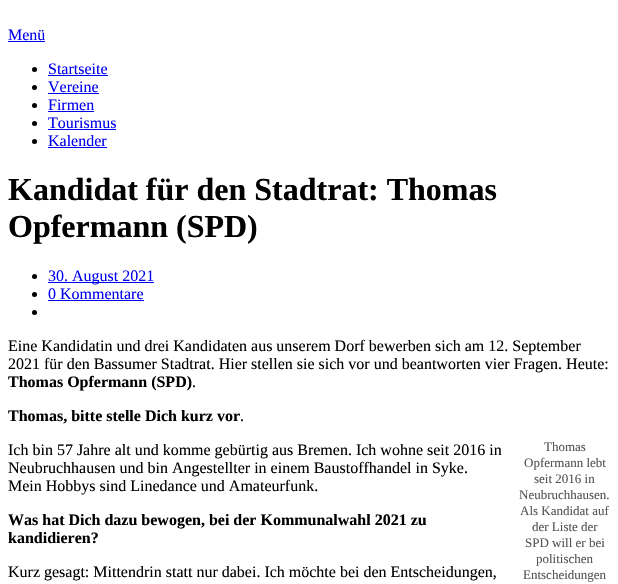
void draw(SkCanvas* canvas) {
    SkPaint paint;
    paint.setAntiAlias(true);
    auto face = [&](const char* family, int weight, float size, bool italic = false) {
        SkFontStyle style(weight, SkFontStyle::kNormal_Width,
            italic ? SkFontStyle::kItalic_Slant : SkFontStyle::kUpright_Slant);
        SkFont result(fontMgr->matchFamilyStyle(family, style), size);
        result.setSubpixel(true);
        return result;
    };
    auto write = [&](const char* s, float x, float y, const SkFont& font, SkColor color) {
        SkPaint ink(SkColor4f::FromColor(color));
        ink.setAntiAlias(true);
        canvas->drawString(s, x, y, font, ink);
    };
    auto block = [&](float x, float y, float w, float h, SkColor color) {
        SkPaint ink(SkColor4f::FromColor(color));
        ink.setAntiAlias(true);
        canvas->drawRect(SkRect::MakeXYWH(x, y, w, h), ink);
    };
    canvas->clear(SK_ColorWHITE);
    auto kFont1 = face("Liberation Serif", 400, 16);
    write("Menü", 8, 40, kFont1, SkColorSetRGB(0, 0, 238));
    block(8, 41, 37, 1, SkColorSetRGB(0, 0, 238));
    paint.setColor(SK_ColorBLACK);
    canvas->drawCircle(34.5f, 69.5f, 2.5f, paint);
    write("Startseite", 48, 74, kFont1, SkColorSetRGB(0, 0, 238));
    block(48, 75, 60, 1, SkColorSetRGB(0, 0, 238));
    canvas->drawCircle(34.5f, 87.5f, 2.5f, paint);
    write("Vereine", 48, 92, kFont1, SkColorSetRGB(0, 0, 238));
    block(48, 93, 51, 1, SkColorSetRGB(0, 0, 238));
    canvas->drawCircle(34.5f, 105.5f, 2.5f, paint);
    write("Firmen", 48, 110, kFont1, SkColorSetRGB(0, 0, 238));
    block(48, 111, 46, 1, SkColorSetRGB(0, 0, 238));
    canvas->drawCircle(34.5f, 123.5f, 2.5f, paint);
    write("Tourismus", 48, 128, kFont1, SkColorSetRGB(0, 0, 238));
    block(48, 129, 68, 1, SkColorSetRGB(0, 0, 238));
    canvas->drawCircle(34.5f, 141.5f, 2.5f, paint);
    write("Kalender", 48, 146, kFont1, SkColorSetRGB(0, 0, 238));
    block(48, 147, 59, 1, SkColorSetRGB(0, 0, 238));
    auto kFont2 = face("Liberation Serif", 700, 32);
    write("Kandidat für den Stadtrat: Thomas", 8, 200, kFont2, SK_ColorBLACK);
    write("Opfermann (SPD)", 8, 237, kFont2, SK_ColorBLACK);
    canvas->drawCircle(34.5f, 276.5f, 2.5f, paint);
    block(48, 282, 106, 1, SkColorSetRGB(0, 0, 238));
    write("30. August 2021", 48, 281, kFont1, SkColorSetRGB(0, 0, 238));
    canvas->drawCircle(34.5f, 294.5f, 2.5f, paint);
    write("0 Kommentare", 48, 299, kFont1, SkColorSetRGB(0, 0, 238));
    block(48, 300, 96, 1, SkColorSetRGB(0, 0, 238));
    canvas->drawCircle(34.5f, 312.5f, 2.5f, paint);
    write("Eine Kandidatin und drei Kandidaten aus unserem Dorf bewerben sich am 12. September", 8, 351, kFont1, SK_ColorBLACK);
    write("2021 für den Bassumer Stadtrat. Hier stellen sie sich vor und beantworten vier Fragen. Heute:", 8, 369, kFont1, SK_ColorBLACK);
    auto kFont3 = face("Liberation Serif", 700, 16);
    write("Thomas Opfermann (SPD)", 8, 387, kFont3, SK_ColorBLACK);
    write(".", 192, 387, kFont1, SK_ColorBLACK);
    write("Thomas, bitte stelle Dich kurz vor", 8, 421, kFont3, SK_ColorBLACK);
    write(".", 240, 421, kFont1, SK_ColorBLACK);
    write("Ich bin 57 Jahre alt und komme gebürtig aus Bremen. Ich wohne seit 2016 in", 8, 455, kFont1, SK_ColorBLACK);
    write("Neubruchhausen und bin Angestellter in einem Baustoffhandel in Syke.", 8, 473, kFont1, SK_ColorBLACK);
    write("Mein Hobbys sind Linedance und Amateurfunk.", 8, 491, kFont1, SK_ColorBLACK);
    auto kFont4 = face("Liberation Serif", 400, 13);
    write("Thomas", 544, 451, kFont4, SkColorSetRGB(85, 85, 85));
    write("Opfermann lebt", 524, 467, kFont4, SkColorSetRGB(85, 85, 85));
    write("seit 2016 in", 534, 483, kFont4, SkColorSetRGB(85, 85, 85));
    write("Neubruchhausen.", 519, 499, kFont4, SkColorSetRGB(85, 85, 85));
    write("Als Kandidat auf", 520, 515, kFont4, SkColorSetRGB(85, 85, 85));
    write("der Liste der", 532, 531, kFont4, SkColorSetRGB(85, 85, 85));
    write("SPD will er bei", 525, 547, kFont4, SkColorSetRGB(85, 85, 85));
    write("politischen", 536, 563, kFont4, SkColorSetRGB(85, 85, 85));
    write("Entscheidungen", 523, 579, kFont4, SkColorSetRGB(85, 85, 85));
    write("Was hat Dich dazu bewogen, bei der Kommunalwahl 2021 zu", 8, 525, kFont3, SK_ColorBLACK);
    write("kandidieren?", 8, 543, kFont3, SK_ColorBLACK);
    write("Kurz gesagt: Mittendrin statt nur dabei. Ich möchte bei den Entscheidungen,", 8, 577, kFont1, SK_ColorBLACK);
}
